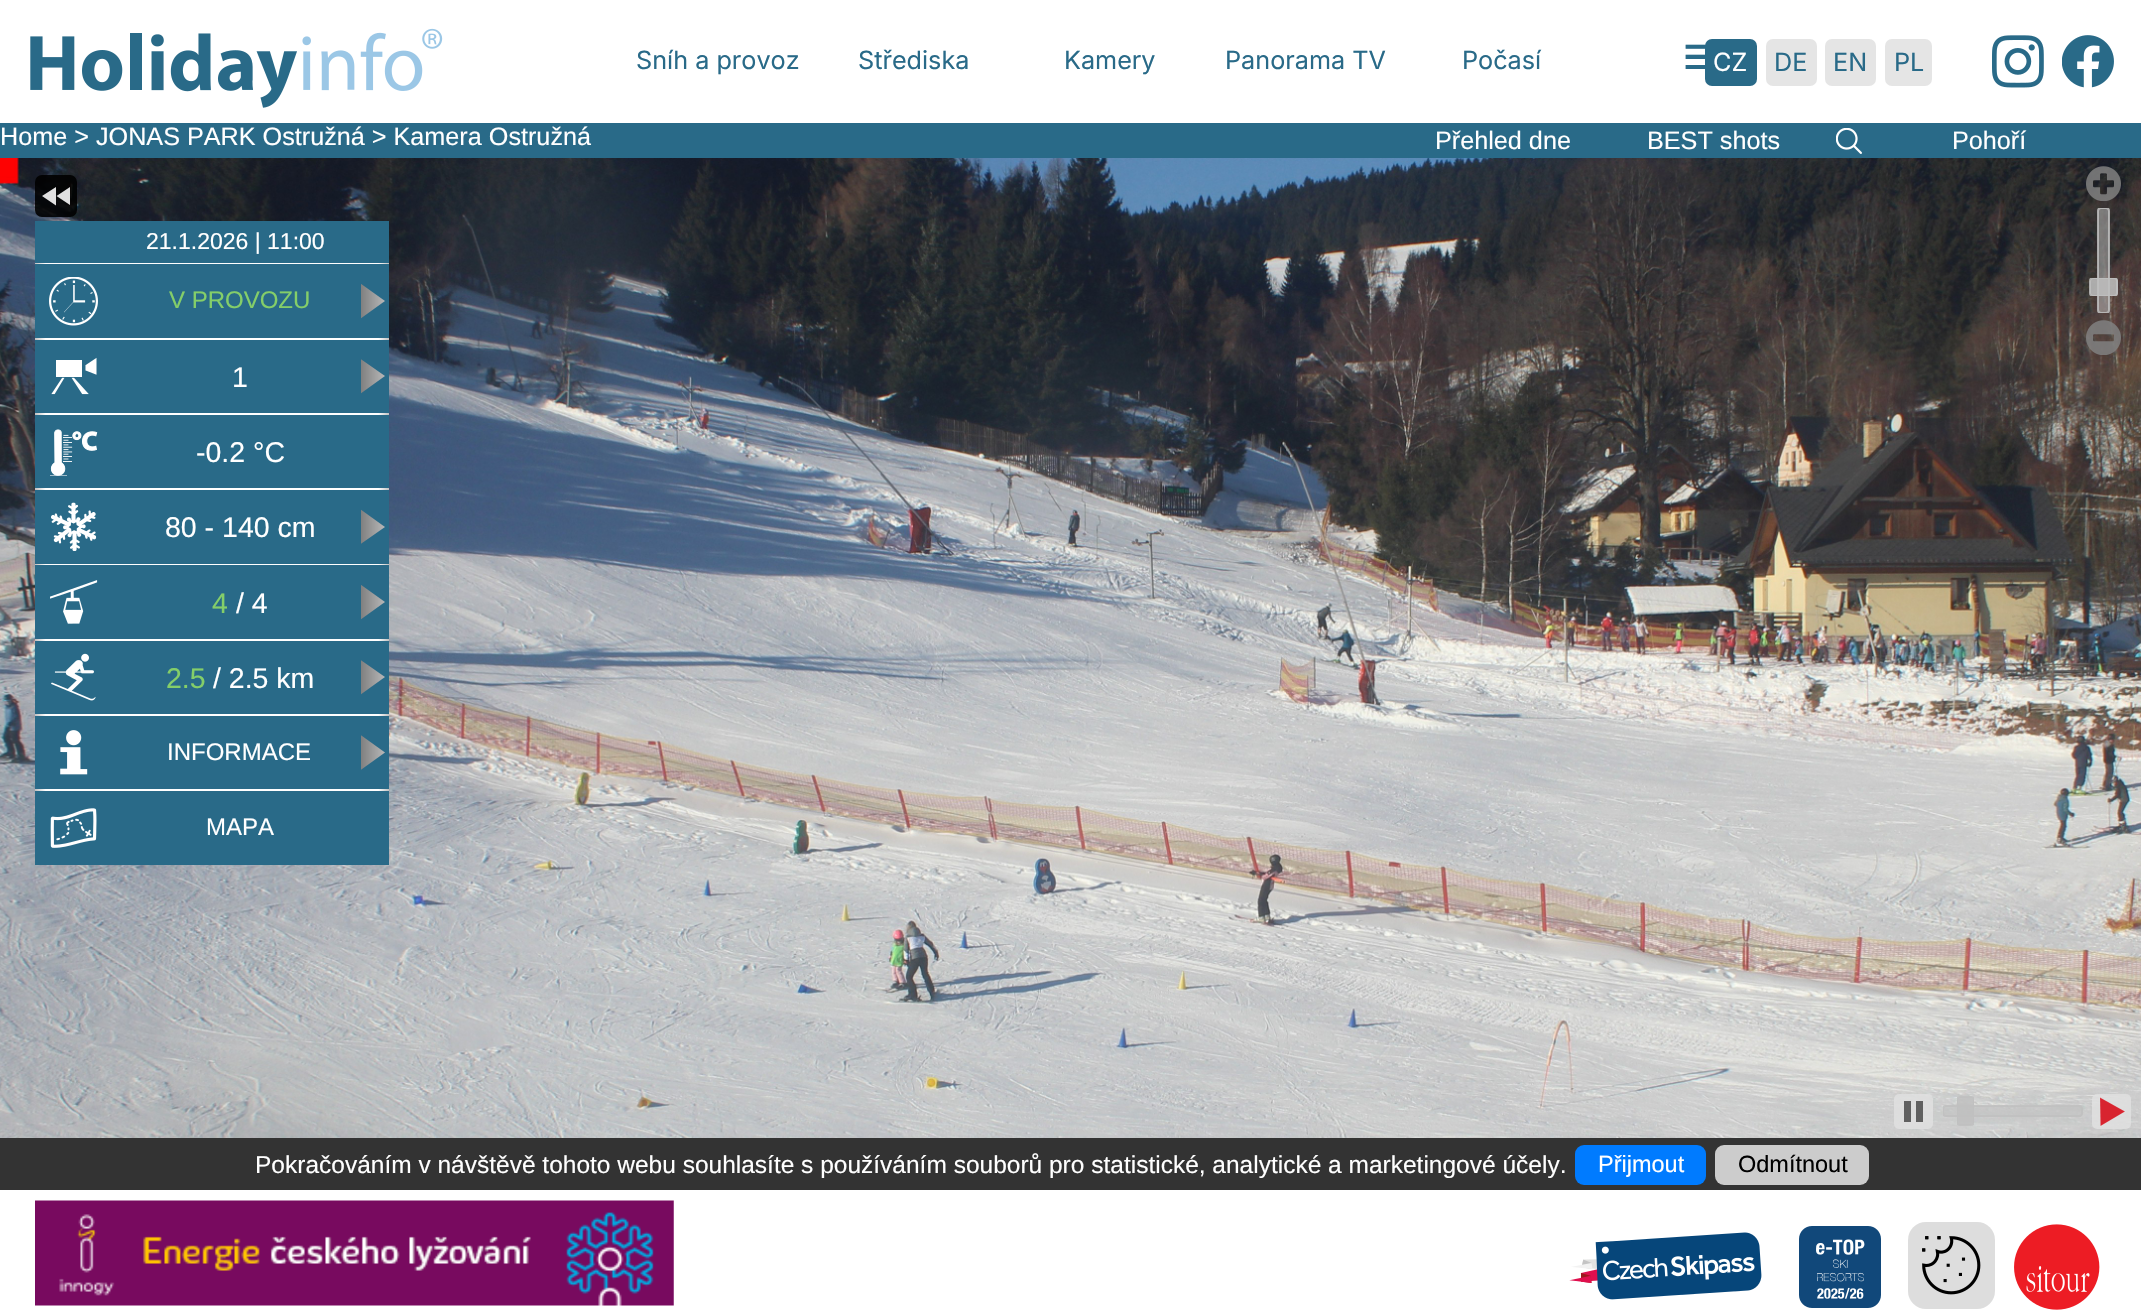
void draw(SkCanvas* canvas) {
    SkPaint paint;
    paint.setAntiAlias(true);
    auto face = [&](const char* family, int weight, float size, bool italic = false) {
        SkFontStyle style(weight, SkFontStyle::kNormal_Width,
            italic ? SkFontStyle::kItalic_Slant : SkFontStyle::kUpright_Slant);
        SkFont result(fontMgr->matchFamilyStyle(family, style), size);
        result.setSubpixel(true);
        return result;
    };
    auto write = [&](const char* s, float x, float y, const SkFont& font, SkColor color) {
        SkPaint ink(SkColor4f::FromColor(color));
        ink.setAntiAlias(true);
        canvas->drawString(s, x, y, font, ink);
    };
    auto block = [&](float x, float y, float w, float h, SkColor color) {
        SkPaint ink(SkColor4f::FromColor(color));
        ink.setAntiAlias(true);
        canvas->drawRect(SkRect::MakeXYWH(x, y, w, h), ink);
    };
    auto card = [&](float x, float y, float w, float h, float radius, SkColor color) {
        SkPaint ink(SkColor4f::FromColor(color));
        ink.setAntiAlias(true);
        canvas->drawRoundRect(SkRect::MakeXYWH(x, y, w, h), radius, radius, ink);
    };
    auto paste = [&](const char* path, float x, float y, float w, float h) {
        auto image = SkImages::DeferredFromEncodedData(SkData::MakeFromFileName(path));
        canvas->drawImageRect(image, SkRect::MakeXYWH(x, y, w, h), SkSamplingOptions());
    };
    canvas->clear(SK_ColorWHITE);
    paste("pic1.png", 30, 28, 413, 80);
    auto kFont1 = face("Inter", 400, 25.2f);
    write("Sníh a provoz", 636, 69, kFont1, SkColorSetRGB(41, 106, 136));
    write("Střediska", 858, 69, kFont1, SkColorSetRGB(41, 106, 136));
    write("Kamery", 1064, 69, kFont1, SkColorSetRGB(41, 106, 136));
    write("Panorama TV", 1225, 69, kFont1, SkColorSetRGB(41, 106, 136));
    write("Počasí", 1462, 69, kFont1, SkColorSetRGB(41, 106, 136));
    auto kFont2 = face("DejaVu Sans", 700, 32);
    write("☰", 1683, 69, kFont2, SkColorSetRGB(41, 106, 136));
    card(1705, 39, 52, 47, 7, SkColorSetRGB(41, 106, 136));
    write("CZ", 1713, 71, kFont1, SK_ColorWHITE);
    card(1766, 39, 51, 47, 7, SkColorSetRGB(229, 229, 229));
    write("DE", 1774, 71, kFont1, SkColorSetRGB(41, 106, 136));
    card(1825, 39, 51, 47, 7, SkColorSetRGB(229, 229, 229));
    write("EN", 1833, 71, kFont1, SkColorSetRGB(41, 106, 136));
    card(1885, 39, 47, 47, 7, SkColorSetRGB(229, 229, 229));
    write("PL", 1894, 71, kFont1, SkColorSetRGB(41, 106, 136));
    paste("pic2.png", 1992, 35, 52, 53);
    paste("pic3.png", 2062, 35, 52, 53);
    block(0, 123, 2141, 35, SkColorSetRGB(41, 106, 136));
    auto kFont3 = face("Liberation Sans", 400, 25.2f);
    write("Home > JONAS PARK Ostružná > Kamera Ostružná", 0, 145, kFont3, SK_ColorWHITE);
    write("Přehled dne", 1435, 149, kFont3, SK_ColorWHITE);
    write("BEST shots", 1647, 149, kFont3, SK_ColorWHITE);
    paste("pic4.png", 1836, 128, 26, 26);
    write("Pohoří", 1952, 149, kFont3, SK_ColorWHITE);
    paste("pic5.png", 0, 158, 2141, 980);
    card(35, 175, 42, 42, 7, SkColorSetARGB(230, 0, 0, 0));
    paint.setColor(SkColorSetRGB(224, 224, 224));
    canvas->drawPath(SkPathBuilder().moveTo(56, 187).lineTo(42, 196).lineTo(56, 205.5f).close().moveTo(70, 187).lineTo(56.5f, 196).lineTo(70, 205).close().detach(), paint);
    paste("pic6.png", 2086, 166, 35, 35);
    card(2098, 208, 11, 105, 4, SkColorSetARGB(128, 192, 192, 192));
    canvas->save();
    canvas->clipRect(SkRect::MakeXYWH(2086, 208, 35, 105));
    paint.setStyle(SkPaint::kStroke_Style);
    paint.setStrokeWidth(2);
    paint.setColor(SkColorSetARGB(217, 192, 192, 192));
    canvas->drawRoundRect(SkRect::MakeXYWH(2098, 208, 11, 105), 3, 3, paint);
    canvas->restore();
    card(2090, 278, 28, 18, 4, SkColorSetARGB(217, 192, 192, 192));
    canvas->save();
    canvas->clipRect(SkRect::MakeXYWH(2086, 278, 35, 18));
    canvas->drawRoundRect(SkRect::MakeXYWH(2090, 278, 27, 18), 3, 3, paint);
    canvas->restore();
    paste("pic7.png", 2086, 320, 35, 35);
    block(35, 221, 354, 644, SkColorSetRGB(41, 106, 136));
    auto kFont4 = face("Liberation Sans", 400, 23);
    write("21.1.2026 | 11:00", 146, 249, kFont4, SK_ColorWHITE);
    paint.setStyle(SkPaint::kFill_Style);
    {
        const SkColor colors[] = {SkColorSetRGB(192, 192, 192), SK_ColorWHITE, SK_ColorWHITE, SkColorSetRGB(192, 192, 192)};
        const float stops[] = {0, 0.03f, 0.97f, 1};
        const SkPoint ends[] = {{35, 263}, {389, 263}};
        paint.setShader(SkGradientShader::MakeLinear(ends, colors, stops, 4, SkTileMode::kClamp));
        paint.setAlpha(255);
    }
    canvas->drawRect(SkRect::MakeXYWH(35, 263, 354, 1), paint);
    canvas->save();
    canvas->clipRect(SkRect::MakeXYWH(361, 284, 24, 35));
    {
        const SkColor colors[] = {SkColorSetRGB(184, 184, 184), SkColorSetRGB(128, 128, 128)};
        const float stops[] = {0, 1};
        const SkPoint ends[] = {{385, 634}, {361, 634}};
        paint.setShader(SkGradientShader::MakeLinear(ends, colors, stops, 2, SkTileMode::kClamp));
        paint.setAlpha(255);
    }
    canvas->drawPath(SkPathBuilder().moveTo(360.5f, 283.5f).lineTo(360.5f, 318.5f).lineTo(385, 301).close().detach(), paint);
    canvas->restore();
    paste("pic8.png", 49, 277, 49, 49);
    auto kFont5 = face("Liberation Sans", 400, 24);
    write("V PROVOZU", 169, 308, kFont5, SkColorSetRGB(132, 206, 105));
    {
        const SkColor colors[] = {SkColorSetRGB(192, 192, 192), SK_ColorWHITE, SK_ColorWHITE, SkColorSetRGB(192, 192, 192)};
        const float stops[] = {0, 0.03f, 0.97f, 1};
        const SkPoint ends[] = {{35, 339}, {389, 339}};
        paint.setShader(SkGradientShader::MakeLinear(ends, colors, stops, 4, SkTileMode::kClamp));
        paint.setAlpha(255);
    }
    canvas->drawRect(SkRect::MakeXYWH(35, 338, 354, 2), paint);
    canvas->save();
    canvas->clipRect(SkRect::MakeXYWH(361, 359, 24, 35));
    {
        const SkColor colors[] = {SkColorSetRGB(184, 184, 184), SkColorSetRGB(128, 128, 128)};
        const float stops[] = {0, 1};
        const SkPoint ends[] = {{385, 709}, {361, 709}};
        paint.setShader(SkGradientShader::MakeLinear(ends, colors, stops, 2, SkTileMode::kClamp));
        paint.setAlpha(255);
    }
    canvas->drawPath(SkPathBuilder().moveTo(360.5f, 359).lineTo(360.5f, 393.5f).lineTo(385, 376).close().detach(), paint);
    canvas->restore();
    paste("pic9.png", 51, 357, 46, 38);
    auto kFont6 = face("Liberation Sans", 400, 28.5f);
    write("1", 232, 387, kFont6, SK_ColorWHITE);
    {
        const SkColor colors[] = {SkColorSetRGB(192, 192, 192), SK_ColorWHITE, SK_ColorWHITE, SkColorSetRGB(192, 192, 192)};
        const float stops[] = {0, 0.03f, 0.97f, 1};
        const SkPoint ends[] = {{35, 414}, {389, 414}};
        paint.setShader(SkGradientShader::MakeLinear(ends, colors, stops, 4, SkTileMode::kClamp));
        paint.setAlpha(255);
    }
    canvas->drawRect(SkRect::MakeXYWH(35, 413, 354, 2), paint);
    paste("pic10.png", 50, 429, 48, 47);
    write("-0.2 °C", 196, 462, kFont6, SK_ColorWHITE);
    {
        const SkColor colors[] = {SkColorSetRGB(192, 192, 192), SK_ColorWHITE, SK_ColorWHITE, SkColorSetRGB(192, 192, 192)};
        const float stops[] = {0, 0.03f, 0.97f, 1};
        const SkPoint ends[] = {{35, 489}, {389, 489}};
        paint.setShader(SkGradientShader::MakeLinear(ends, colors, stops, 4, SkTileMode::kClamp));
        paint.setAlpha(255);
    }
    canvas->drawRect(SkRect::MakeXYWH(35, 488, 354, 2), paint);
    canvas->save();
    canvas->clipRect(SkRect::MakeXYWH(361, 509, 24, 35));
    {
        const SkColor colors[] = {SkColorSetRGB(184, 184, 184), SkColorSetRGB(128, 128, 128)};
        const float stops[] = {0, 1};
        const SkPoint ends[] = {{385, 860}, {361, 860}};
        paint.setShader(SkGradientShader::MakeLinear(ends, colors, stops, 2, SkTileMode::kClamp));
        paint.setAlpha(255);
    }
    canvas->drawPath(SkPathBuilder().moveTo(360.5f, 509.5f).lineTo(360.5f, 544).lineTo(385, 527).close().detach(), paint);
    canvas->restore();
    paste("pic11.png", 51, 502, 46, 49);
    write("80 - 140 cm", 165, 537, kFont6, SK_ColorWHITE);
    {
        const SkColor colors[] = {SkColorSetRGB(192, 192, 192), SK_ColorWHITE, SK_ColorWHITE, SkColorSetRGB(192, 192, 192)};
        const float stops[] = {0, 0.03f, 0.97f, 1};
        const SkPoint ends[] = {{35, 564}, {389, 564}};
        paint.setShader(SkGradientShader::MakeLinear(ends, colors, stops, 4, SkTileMode::kClamp));
        paint.setAlpha(255);
    }
    canvas->drawRect(SkRect::MakeXYWH(35, 564, 354, 1), paint);
    canvas->save();
    canvas->clipRect(SkRect::MakeXYWH(361, 585, 24, 35));
    {
        const SkColor colors[] = {SkColorSetRGB(184, 184, 184), SkColorSetRGB(128, 128, 128)};
        const float stops[] = {0, 1};
        const SkPoint ends[] = {{385, 935}, {361, 935}};
        paint.setShader(SkGradientShader::MakeLinear(ends, colors, stops, 2, SkTileMode::kClamp));
        paint.setAlpha(255);
    }
    canvas->drawPath(SkPathBuilder().moveTo(360.5f, 584.5f).lineTo(360.5f, 619.5f).lineTo(385, 602).close().detach(), paint);
    canvas->restore();
    paste("pic12.png", 50, 580, 48, 44);
    write("4", 212, 613, kFont6, SkColorSetRGB(132, 206, 105));
    write("/ 4", 236, 613, kFont6, SK_ColorWHITE);
    {
        const SkColor colors[] = {SkColorSetRGB(192, 192, 192), SK_ColorWHITE, SK_ColorWHITE, SkColorSetRGB(192, 192, 192)};
        const float stops[] = {0, 0.03f, 0.97f, 1};
        const SkPoint ends[] = {{35, 640}, {389, 640}};
        paint.setShader(SkGradientShader::MakeLinear(ends, colors, stops, 4, SkTileMode::kClamp));
        paint.setAlpha(255);
    }
    canvas->drawRect(SkRect::MakeXYWH(35, 639, 354, 2), paint);
    canvas->save();
    canvas->clipRect(SkRect::MakeXYWH(361, 660, 24, 35));
    {
        const SkColor colors[] = {SkColorSetRGB(184, 184, 184), SkColorSetRGB(128, 128, 128)};
        const float stops[] = {0, 1};
        const SkPoint ends[] = {{385, 1010}, {361, 1010}};
        paint.setShader(SkGradientShader::MakeLinear(ends, colors, stops, 2, SkTileMode::kClamp));
        paint.setAlpha(255);
    }
    canvas->drawPath(SkPathBuilder().moveTo(360.5f, 660).lineTo(360.5f, 694.5f).lineTo(385, 677).close().detach(), paint);
    canvas->restore();
    paste("pic13.png", 51, 653, 45, 48);
    write("2.5", 166, 688, kFont6, SkColorSetRGB(132, 206, 105));
    write("/ 2.5 km", 213, 688, kFont6, SK_ColorWHITE);
    {
        const SkColor colors[] = {SkColorSetRGB(192, 192, 192), SK_ColorWHITE, SK_ColorWHITE, SkColorSetRGB(192, 192, 192)};
        const float stops[] = {0, 0.03f, 0.97f, 1};
        const SkPoint ends[] = {{35, 715}, {389, 715}};
        paint.setShader(SkGradientShader::MakeLinear(ends, colors, stops, 4, SkTileMode::kClamp));
        paint.setAlpha(255);
    }
    canvas->drawRect(SkRect::MakeXYWH(35, 714, 354, 2), paint);
    canvas->save();
    canvas->clipRect(SkRect::MakeXYWH(361, 735, 24, 35));
    {
        const SkColor colors[] = {SkColorSetRGB(184, 184, 184), SkColorSetRGB(128, 128, 128)};
        const float stops[] = {0, 1};
        const SkPoint ends[] = {{385, 1085}, {361, 1085}};
        paint.setShader(SkGradientShader::MakeLinear(ends, colors, stops, 2, SkTileMode::kClamp));
        paint.setAlpha(255);
    }
    canvas->drawPath(SkPathBuilder().moveTo(360.5f, 735).lineTo(360.5f, 770).lineTo(385, 752.5f).close().detach(), paint);
    canvas->restore();
    paste("pic14.png", 60, 730, 28, 45);
    write("INFORMACE", 167, 760, kFont5, SK_ColorWHITE);
    {
        const SkColor colors[] = {SkColorSetRGB(192, 192, 192), SK_ColorWHITE, SK_ColorWHITE, SkColorSetRGB(192, 192, 192)};
        const float stops[] = {0, 0.03f, 0.97f, 1};
        const SkPoint ends[] = {{35, 790}, {389, 790}};
        paint.setShader(SkGradientShader::MakeLinear(ends, colors, stops, 4, SkTileMode::kClamp));
        paint.setAlpha(255);
    }
    canvas->drawRect(SkRect::MakeXYWH(35, 789, 354, 2), paint);
    paste("pic15.png", 50, 808, 47, 40);
    write("MAPA", 206, 835, kFont5, SK_ColorWHITE);
    card(1894, 1094, 39, 35, 5, SkColorSetARGB(209, 224, 224, 224));
    block(1904, 1101, 7, 21, SkColorSetRGB(96, 96, 96));
    block(1916, 1101, 7, 21, SkColorSetRGB(96, 96, 96));
    card(1943, 1106, 140, 11, 4, SkColorSetARGB(128, 192, 192, 192));
    canvas->save();
    canvas->clipRect(SkRect::MakeXYWH(1943, 1094, 140, 35));
    paint.setStyle(SkPaint::kStroke_Style);
    paint.setShader(nullptr);
    paint.setColor(SkColorSetARGB(217, 192, 192, 192));
    canvas->drawRoundRect(SkRect::MakeXYWH(1943, 1106, 139, 10), 3, 3, paint);
    canvas->restore();
    card(1957, 1097, 17, 28, 4, SkColorSetARGB(217, 192, 192, 192));
    canvas->save();
    canvas->clipRect(SkRect::MakeXYWH(1957, 1094, 17, 35));
    canvas->drawRoundRect(SkRect::MakeXYWH(1957, 1097, 17, 28), 3, 3, paint);
    canvas->restore();
    card(2092, 1094, 39, 35, 5, SkColorSetARGB(209, 224, 224, 224));
    paint.setStyle(SkPaint::kFill_Style);
    paint.setColor(SkColorSetRGB(216, 36, 47));
    canvas->drawPath(SkPathBuilder().moveTo(2100.5f, 1126).lineTo(2100, 1097.5f).lineTo(2125, 1111.5f).close().detach(), paint);
    paint.setStyle(SkPaint::kStroke_Style);
    paint.setStrokeWidth(0.1f);
    paint.setColor(SK_ColorWHITE);
    canvas->drawPath(SkPathBuilder().moveTo(2100.5f, 1126).lineTo(2100, 1097.5f).lineTo(2125, 1111.5f).close().detach(), paint);
    block(0, 1138, 2141, 52, SkColorSetRGB(51, 51, 51));
    auto kFont7 = face("Liberation Sans", 400, 24.5f);
    write("Pokračováním v návštěvě tohoto webu souhlasíte s používáním souborů pro statistické, analytické a marketingové účely.", 255, 1173, kFont7, SK_ColorWHITE);
    card(1575, 1145, 131, 40, 9, SkColorSetRGB(0, 123, 255));
    auto kFont8 = face("Liberation Sans", 400, 23.5f);
    write("Přijmout", 1598, 1172, kFont8, SK_ColorWHITE);
    card(1715, 1145, 154, 40, 9, SkColorSetRGB(204, 204, 204));
    write("Odmítnout", 1738, 1172, kFont8, SK_ColorBLACK);
    paste("pic16.png", 35, 1200, 639, 106);
    paste("pic17.png", 1569, 1232, 193, 68);
    paste("pic18.png", 1799, 1226, 82, 82);
    card(1908, 1222, 87, 87, 18, SkColorSetRGB(221, 221, 221));
    paste("pic19.png", 1922, 1236, 59, 59);
    paste("pic20.png", 2014, 1224, 86, 86);
}
